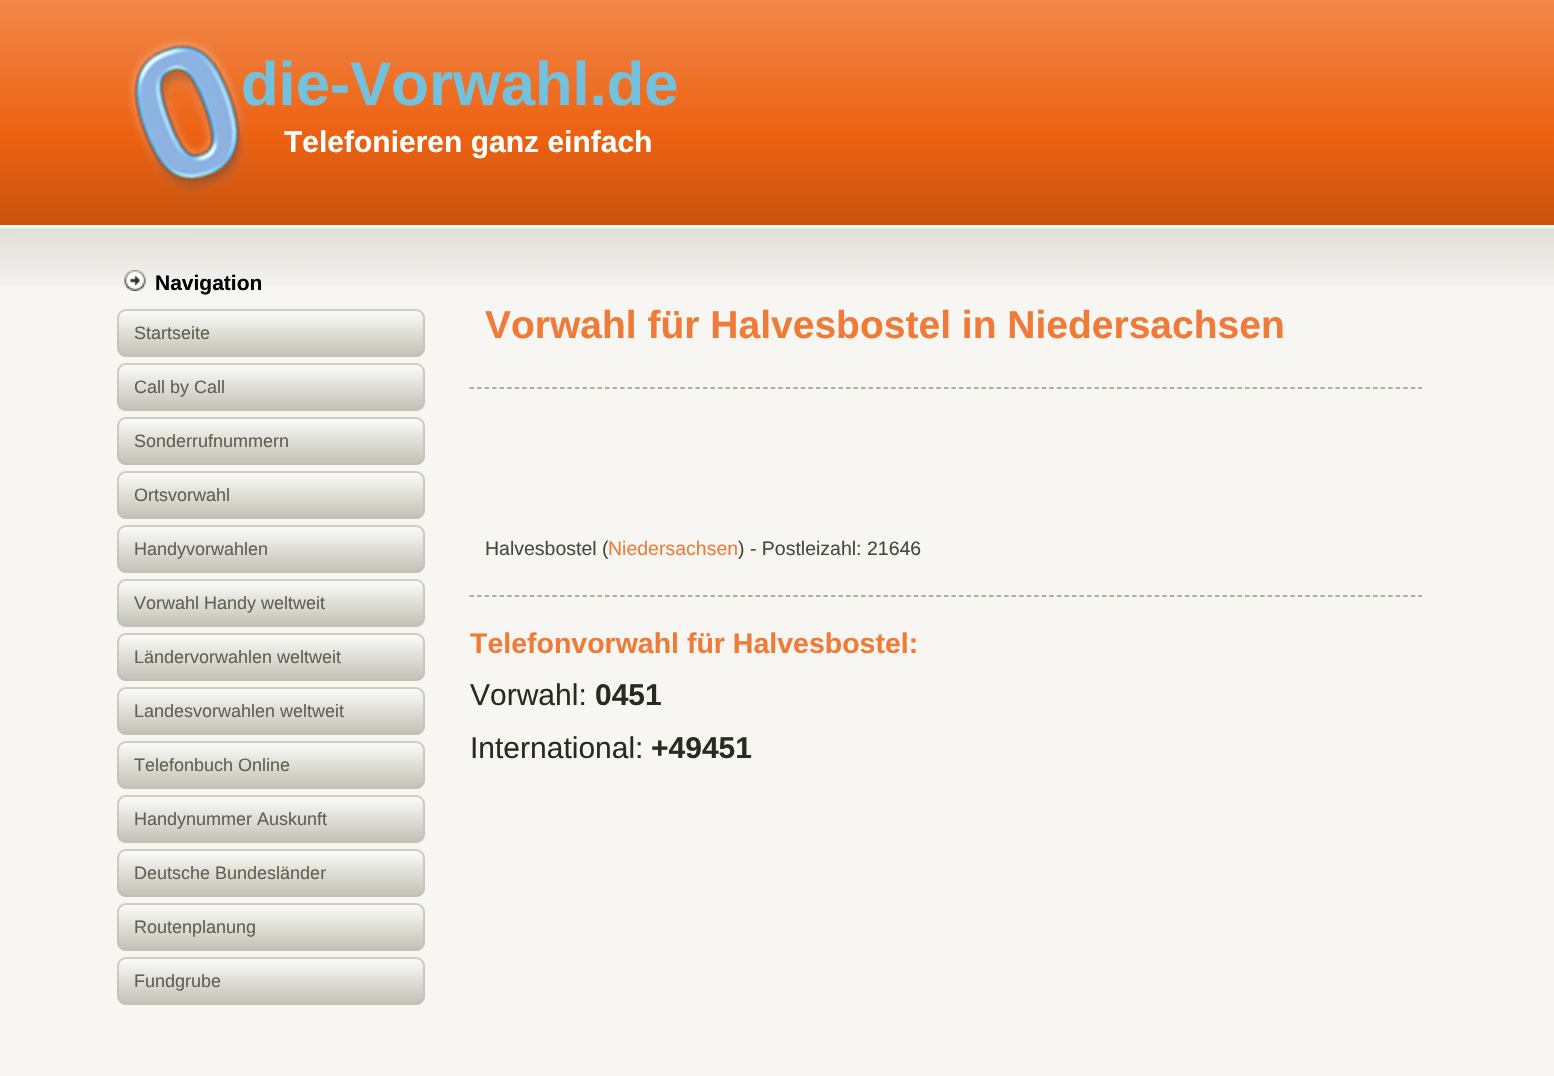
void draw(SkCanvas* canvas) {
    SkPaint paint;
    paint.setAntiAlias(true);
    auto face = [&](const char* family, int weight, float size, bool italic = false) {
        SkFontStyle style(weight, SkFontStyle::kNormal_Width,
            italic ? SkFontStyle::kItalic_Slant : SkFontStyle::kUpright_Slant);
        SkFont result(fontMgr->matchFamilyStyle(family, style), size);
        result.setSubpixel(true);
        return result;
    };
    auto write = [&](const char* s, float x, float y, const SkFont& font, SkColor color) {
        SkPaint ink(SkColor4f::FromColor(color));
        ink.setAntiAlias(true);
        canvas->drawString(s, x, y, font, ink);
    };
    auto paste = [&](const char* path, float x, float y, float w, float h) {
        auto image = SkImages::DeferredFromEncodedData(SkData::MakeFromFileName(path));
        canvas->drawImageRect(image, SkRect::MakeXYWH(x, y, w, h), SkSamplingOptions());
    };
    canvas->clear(SkColorSetRGB(247, 246, 243));
    paste("pic1.png", 0, 227, 1554, 59);
    paste("pic2.png", 0, 0, 1554, 225);
    paste("pic3.png", 128, 39, 120, 154);
    auto kFont1 = face("Liberation Sans", 700, 61.5f);
    write("die-Vorwahl.de", 241, 105, kFont1, SkColorSetRGB(115, 193, 221));
    auto kFont2 = face("Liberation Sans", 700, 30);
    write("Telefonieren ganz einfach", 284, 152, kFont2, SK_ColorWHITE);
    paste("pic4.png", 124, 270, 22, 21);
    auto kFont3 = face("Liberation Sans", 700, 21);
    write("Navigation", 155, 290, kFont3, SK_ColorBLACK);
    {
        const SkColor colors[] = {SkColorSetRGB(253, 253, 253), SkColorSetRGB(192, 192, 179)};
        const float stops[] = {0, 1};
        const SkPoint ends[] = {{271, 309}, {271, 357}};
        paint.setShader(SkGradientShader::MakeLinear(ends, colors, stops, 2, SkTileMode::kClamp));
        paint.setAlpha(255);
    }
    canvas->drawRoundRect(SkRect::MakeXYWH(117, 309, 308, 48), 9, 9, paint);
    paint.setStyle(SkPaint::kStroke_Style);
    paint.setStrokeWidth(2);
    paint.setShader(nullptr);
    paint.setColor(SkColorSetARGB(204, 192, 192, 180));
    canvas->drawRoundRect(SkRect::MakeXYWH(118, 310, 306, 46), 8, 8, paint);
    auto kFont4 = face("Liberation Sans", 400, 18);
    write("Startseite", 134, 339, kFont4, SkColorSetRGB(97, 97, 81));
    paint.setStyle(SkPaint::kFill_Style);
    {
        const SkColor colors[] = {SkColorSetRGB(253, 253, 253), SkColorSetRGB(192, 192, 179)};
        const float stops[] = {0, 1};
        const SkPoint ends[] = {{271, 363}, {271, 411}};
        paint.setShader(SkGradientShader::MakeLinear(ends, colors, stops, 2, SkTileMode::kClamp));
        paint.setAlpha(255);
    }
    canvas->drawRoundRect(SkRect::MakeXYWH(117, 363, 308, 48), 9, 9, paint);
    paint.setStyle(SkPaint::kStroke_Style);
    paint.setShader(nullptr);
    paint.setColor(SkColorSetARGB(204, 192, 192, 180));
    canvas->drawRoundRect(SkRect::MakeXYWH(118, 364, 306, 46), 8, 8, paint);
    write("Call by Call", 134, 393, kFont4, SkColorSetRGB(97, 97, 81));
    paint.setStyle(SkPaint::kFill_Style);
    {
        const SkColor colors[] = {SkColorSetRGB(253, 253, 253), SkColorSetRGB(192, 192, 179)};
        const float stops[] = {0, 1};
        const SkPoint ends[] = {{271, 417}, {271, 465}};
        paint.setShader(SkGradientShader::MakeLinear(ends, colors, stops, 2, SkTileMode::kClamp));
        paint.setAlpha(255);
    }
    canvas->drawRoundRect(SkRect::MakeXYWH(117, 417, 308, 48), 9, 9, paint);
    paint.setStyle(SkPaint::kStroke_Style);
    paint.setShader(nullptr);
    paint.setColor(SkColorSetARGB(204, 192, 192, 180));
    canvas->drawRoundRect(SkRect::MakeXYWH(118, 418, 306, 46), 8, 8, paint);
    write("Sonderrufnummern", 134, 447, kFont4, SkColorSetRGB(97, 97, 81));
    paint.setStyle(SkPaint::kFill_Style);
    {
        const SkColor colors[] = {SkColorSetRGB(253, 253, 253), SkColorSetRGB(192, 192, 179)};
        const float stops[] = {0, 1};
        const SkPoint ends[] = {{271, 471}, {271, 519}};
        paint.setShader(SkGradientShader::MakeLinear(ends, colors, stops, 2, SkTileMode::kClamp));
        paint.setAlpha(255);
    }
    canvas->drawRoundRect(SkRect::MakeXYWH(117, 471, 308, 48), 9, 9, paint);
    paint.setStyle(SkPaint::kStroke_Style);
    paint.setShader(nullptr);
    paint.setColor(SkColorSetARGB(204, 192, 192, 180));
    canvas->drawRoundRect(SkRect::MakeXYWH(118, 472, 306, 46), 8, 8, paint);
    write("Ortsvorwahl", 134, 501, kFont4, SkColorSetRGB(97, 97, 81));
    paint.setStyle(SkPaint::kFill_Style);
    {
        const SkColor colors[] = {SkColorSetRGB(253, 253, 253), SkColorSetRGB(192, 192, 179)};
        const float stops[] = {0, 1};
        const SkPoint ends[] = {{271, 525}, {271, 573}};
        paint.setShader(SkGradientShader::MakeLinear(ends, colors, stops, 2, SkTileMode::kClamp));
        paint.setAlpha(255);
    }
    canvas->drawRoundRect(SkRect::MakeXYWH(117, 525, 308, 48), 9, 9, paint);
    paint.setStyle(SkPaint::kStroke_Style);
    paint.setShader(nullptr);
    paint.setColor(SkColorSetARGB(204, 192, 192, 180));
    canvas->drawRoundRect(SkRect::MakeXYWH(118, 526, 306, 46), 8, 8, paint);
    write("Handyvorwahlen", 134, 555, kFont4, SkColorSetRGB(97, 97, 81));
    paint.setStyle(SkPaint::kFill_Style);
    {
        const SkColor colors[] = {SkColorSetRGB(253, 253, 253), SkColorSetRGB(192, 192, 179)};
        const float stops[] = {0, 1};
        const SkPoint ends[] = {{271, 579}, {271, 627}};
        paint.setShader(SkGradientShader::MakeLinear(ends, colors, stops, 2, SkTileMode::kClamp));
        paint.setAlpha(255);
    }
    canvas->drawRoundRect(SkRect::MakeXYWH(117, 579, 308, 48), 9, 9, paint);
    paint.setStyle(SkPaint::kStroke_Style);
    paint.setShader(nullptr);
    paint.setColor(SkColorSetARGB(204, 192, 192, 180));
    canvas->drawRoundRect(SkRect::MakeXYWH(118, 580, 306, 46), 8, 8, paint);
    write("Vorwahl Handy weltweit", 134, 609, kFont4, SkColorSetRGB(97, 97, 81));
    paint.setStyle(SkPaint::kFill_Style);
    {
        const SkColor colors[] = {SkColorSetRGB(253, 253, 253), SkColorSetRGB(192, 192, 179)};
        const float stops[] = {0, 1};
        const SkPoint ends[] = {{271, 633}, {271, 681}};
        paint.setShader(SkGradientShader::MakeLinear(ends, colors, stops, 2, SkTileMode::kClamp));
        paint.setAlpha(255);
    }
    canvas->drawRoundRect(SkRect::MakeXYWH(117, 633, 308, 48), 9, 9, paint);
    paint.setStyle(SkPaint::kStroke_Style);
    paint.setShader(nullptr);
    paint.setColor(SkColorSetARGB(204, 192, 192, 180));
    canvas->drawRoundRect(SkRect::MakeXYWH(118, 634, 306, 46), 8, 8, paint);
    write("Ländervorwahlen weltweit", 134, 663, kFont4, SkColorSetRGB(97, 97, 81));
    paint.setStyle(SkPaint::kFill_Style);
    {
        const SkColor colors[] = {SkColorSetRGB(253, 253, 253), SkColorSetRGB(192, 192, 179)};
        const float stops[] = {0, 1};
        const SkPoint ends[] = {{271, 687}, {271, 735}};
        paint.setShader(SkGradientShader::MakeLinear(ends, colors, stops, 2, SkTileMode::kClamp));
        paint.setAlpha(255);
    }
    canvas->drawRoundRect(SkRect::MakeXYWH(117, 687, 308, 48), 9, 9, paint);
    paint.setStyle(SkPaint::kStroke_Style);
    paint.setShader(nullptr);
    paint.setColor(SkColorSetARGB(204, 192, 192, 180));
    canvas->drawRoundRect(SkRect::MakeXYWH(118, 688, 306, 46), 8, 8, paint);
    write("Landesvorwahlen weltweit", 134, 717, kFont4, SkColorSetRGB(97, 97, 81));
    paint.setStyle(SkPaint::kFill_Style);
    {
        const SkColor colors[] = {SkColorSetRGB(253, 253, 253), SkColorSetRGB(192, 192, 179)};
        const float stops[] = {0, 1};
        const SkPoint ends[] = {{271, 741}, {271, 789}};
        paint.setShader(SkGradientShader::MakeLinear(ends, colors, stops, 2, SkTileMode::kClamp));
        paint.setAlpha(255);
    }
    canvas->drawRoundRect(SkRect::MakeXYWH(117, 741, 308, 48), 9, 9, paint);
    paint.setStyle(SkPaint::kStroke_Style);
    paint.setShader(nullptr);
    paint.setColor(SkColorSetARGB(204, 192, 192, 180));
    canvas->drawRoundRect(SkRect::MakeXYWH(118, 742, 306, 46), 8, 8, paint);
    write("Telefonbuch Online", 134, 771, kFont4, SkColorSetRGB(97, 97, 81));
    paint.setStyle(SkPaint::kFill_Style);
    {
        const SkColor colors[] = {SkColorSetRGB(253, 253, 253), SkColorSetRGB(192, 192, 179)};
        const float stops[] = {0, 1};
        const SkPoint ends[] = {{271, 795}, {271, 843}};
        paint.setShader(SkGradientShader::MakeLinear(ends, colors, stops, 2, SkTileMode::kClamp));
        paint.setAlpha(255);
    }
    canvas->drawRoundRect(SkRect::MakeXYWH(117, 795, 308, 48), 9, 9, paint);
    paint.setStyle(SkPaint::kStroke_Style);
    paint.setShader(nullptr);
    paint.setColor(SkColorSetARGB(204, 192, 192, 180));
    canvas->drawRoundRect(SkRect::MakeXYWH(118, 796, 306, 46), 8, 8, paint);
    write("Handynummer Auskunft", 134, 825, kFont4, SkColorSetRGB(97, 97, 81));
    paint.setStyle(SkPaint::kFill_Style);
    {
        const SkColor colors[] = {SkColorSetRGB(253, 253, 253), SkColorSetRGB(192, 192, 179)};
        const float stops[] = {0, 1};
        const SkPoint ends[] = {{271, 849}, {271, 897}};
        paint.setShader(SkGradientShader::MakeLinear(ends, colors, stops, 2, SkTileMode::kClamp));
        paint.setAlpha(255);
    }
    canvas->drawRoundRect(SkRect::MakeXYWH(117, 849, 308, 48), 9, 9, paint);
    paint.setStyle(SkPaint::kStroke_Style);
    paint.setShader(nullptr);
    paint.setColor(SkColorSetARGB(204, 192, 192, 180));
    canvas->drawRoundRect(SkRect::MakeXYWH(118, 850, 306, 46), 8, 8, paint);
    write("Deutsche Bundesländer", 134, 879, kFont4, SkColorSetRGB(97, 97, 81));
    paint.setStyle(SkPaint::kFill_Style);
    {
        const SkColor colors[] = {SkColorSetRGB(253, 253, 253), SkColorSetRGB(192, 192, 179)};
        const float stops[] = {0, 1};
        const SkPoint ends[] = {{271, 903}, {271, 951}};
        paint.setShader(SkGradientShader::MakeLinear(ends, colors, stops, 2, SkTileMode::kClamp));
        paint.setAlpha(255);
    }
    canvas->drawRoundRect(SkRect::MakeXYWH(117, 903, 308, 48), 9, 9, paint);
    paint.setStyle(SkPaint::kStroke_Style);
    paint.setShader(nullptr);
    paint.setColor(SkColorSetARGB(204, 192, 192, 180));
    canvas->drawRoundRect(SkRect::MakeXYWH(118, 904, 306, 46), 8, 8, paint);
    write("Routenplanung", 134, 933, kFont4, SkColorSetRGB(97, 97, 81));
    paint.setStyle(SkPaint::kFill_Style);
    {
        const SkColor colors[] = {SkColorSetRGB(253, 253, 253), SkColorSetRGB(192, 192, 179)};
        const float stops[] = {0, 1};
        const SkPoint ends[] = {{271, 957}, {271, 1005}};
        paint.setShader(SkGradientShader::MakeLinear(ends, colors, stops, 2, SkTileMode::kClamp));
        paint.setAlpha(255);
    }
    canvas->drawRoundRect(SkRect::MakeXYWH(117, 957, 308, 48), 9, 9, paint);
    paint.setStyle(SkPaint::kStroke_Style);
    paint.setShader(nullptr);
    paint.setColor(SkColorSetARGB(204, 192, 192, 180));
    canvas->drawRoundRect(SkRect::MakeXYWH(118, 958, 306, 46), 8, 8, paint);
    write("Fundgrube", 134, 987, kFont4, SkColorSetRGB(97, 97, 81));
    auto kFont5 = face("Liberation Sans", 700, 39);
    write("Vorwahl für Halvesbostel in Niedersachsen", 485, 338, kFont5, SkColorSetRGB(240, 123, 56));
    paint.setStrokeWidth(1.5f);
    paint.setColor(SkColorSetRGB(151, 151, 130));
    paint.setPathEffect(SkDashPathEffect::Make({{4.5f, 3.03f}}, 0));
    canvas->drawPath(SkPathBuilder().moveTo(469.5f, 388).lineTo(1422, 388).detach(), paint);
    paint.setPathEffect(nullptr);
    auto kFont6 = face("Liberation Sans", 400, 19.5f);
    write("Halvesbostel (", 485, 555, kFont6, SkColorSetRGB(72, 72, 60));
    write("Niedersachsen", 608, 555, kFont6, SkColorSetRGB(240, 123, 56));
    write(") - Postleizahl: 21646", 738, 555, kFont6, SkColorSetRGB(72, 72, 60));
    paint.setPathEffect(SkDashPathEffect::Make({{4.5f, 3.03f}}, 0));
    canvas->drawPath(SkPathBuilder().moveTo(469.5f, 596).lineTo(1422, 596).detach(), paint);
    paint.setPathEffect(nullptr);
    auto kFont7 = face("Liberation Sans", 700, 28.5f);
    write("Telefonvorwahl für Halvesbostel:", 470, 653, kFont7, SkColorSetRGB(240, 123, 56));
    auto kFont8 = face("Liberation Sans", 400, 30);
    write("Vorwahl:", 470, 705, kFont8, SkColorSetRGB(42, 42, 35));
    write("0451", 595, 705, kFont2, SkColorSetRGB(42, 42, 35));
    write("International:", 470, 758, kFont8, SkColorSetRGB(42, 42, 35));
    write("+49451", 651, 758, kFont2, SkColorSetRGB(42, 42, 35));
}
